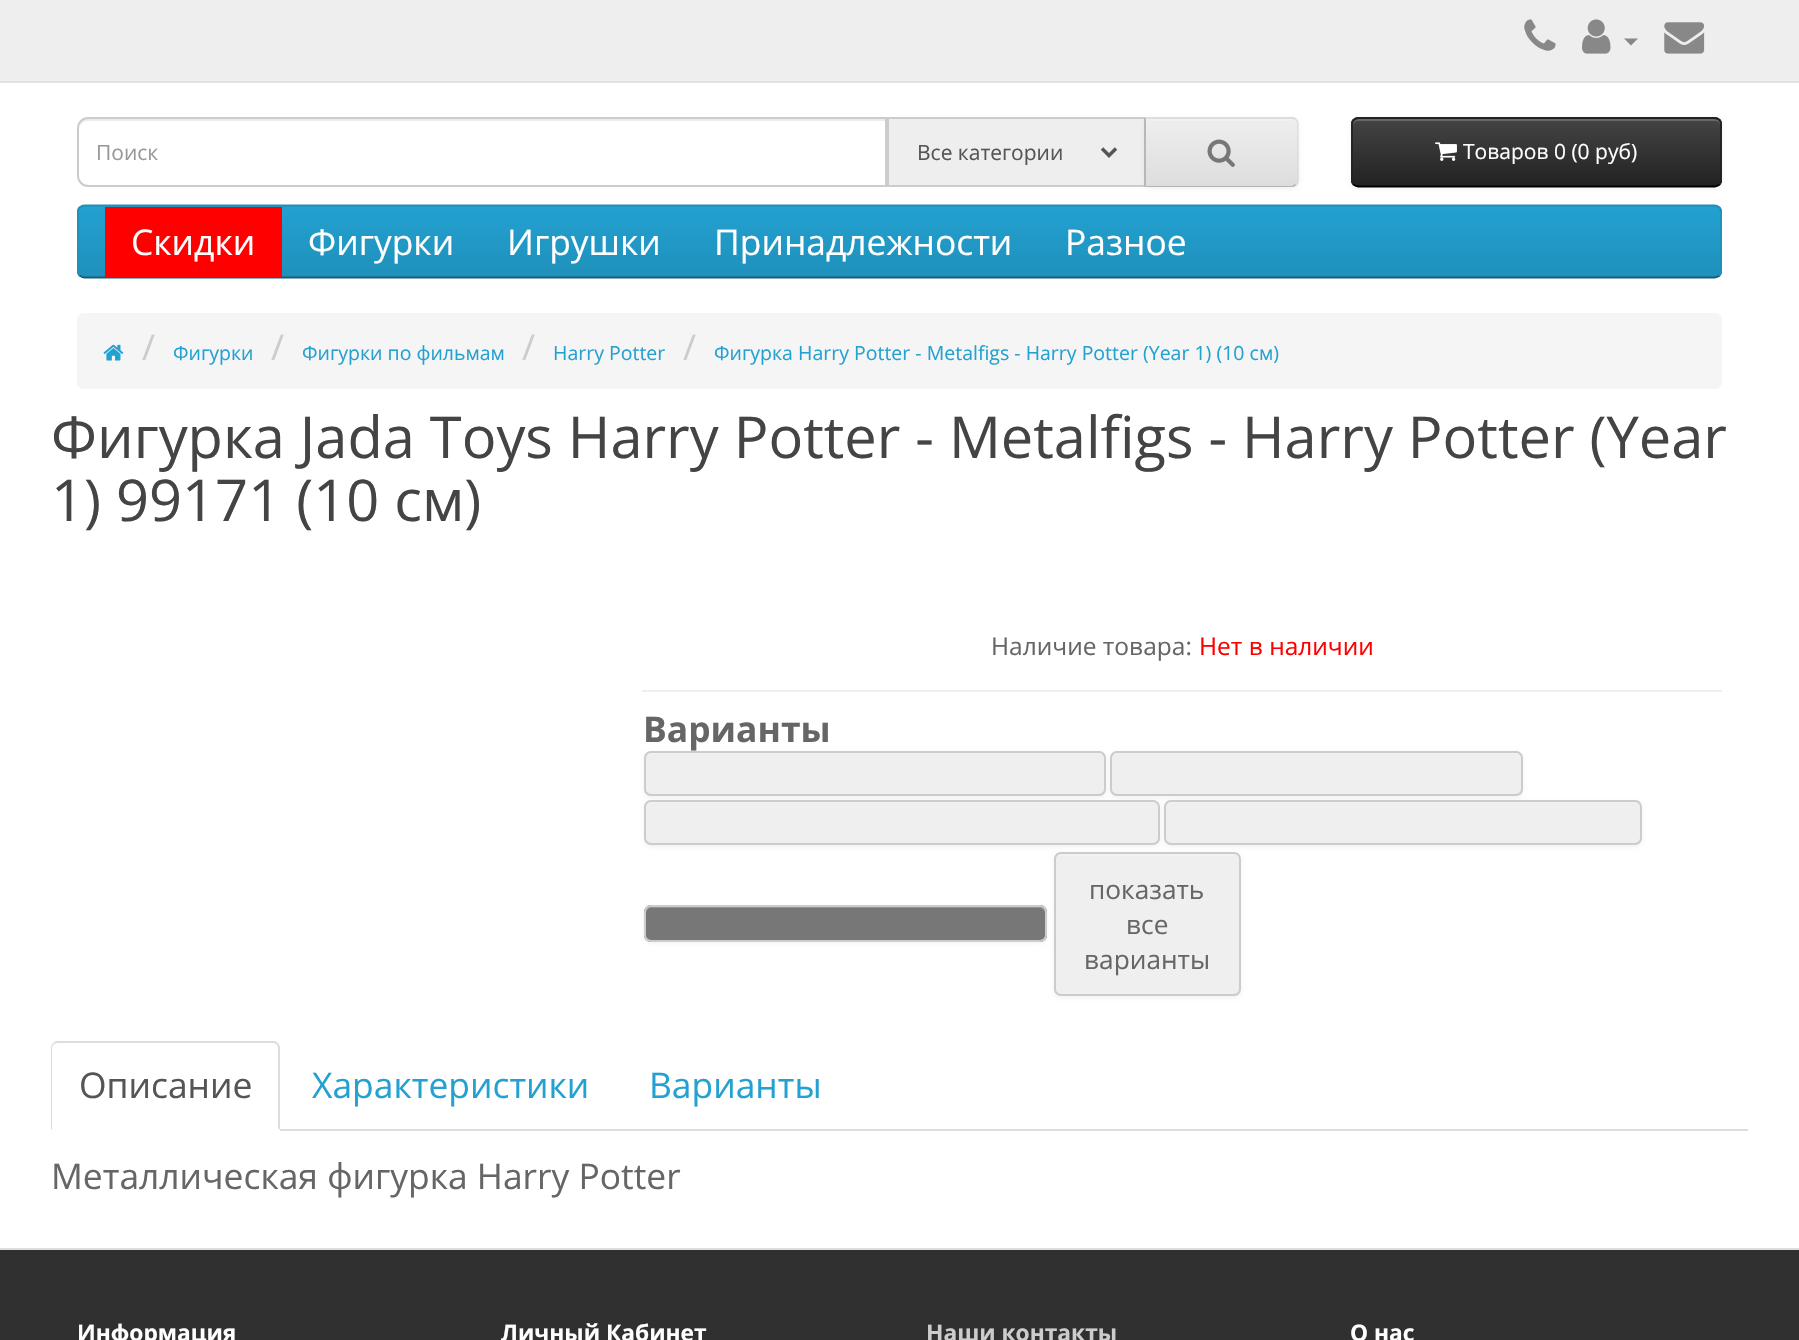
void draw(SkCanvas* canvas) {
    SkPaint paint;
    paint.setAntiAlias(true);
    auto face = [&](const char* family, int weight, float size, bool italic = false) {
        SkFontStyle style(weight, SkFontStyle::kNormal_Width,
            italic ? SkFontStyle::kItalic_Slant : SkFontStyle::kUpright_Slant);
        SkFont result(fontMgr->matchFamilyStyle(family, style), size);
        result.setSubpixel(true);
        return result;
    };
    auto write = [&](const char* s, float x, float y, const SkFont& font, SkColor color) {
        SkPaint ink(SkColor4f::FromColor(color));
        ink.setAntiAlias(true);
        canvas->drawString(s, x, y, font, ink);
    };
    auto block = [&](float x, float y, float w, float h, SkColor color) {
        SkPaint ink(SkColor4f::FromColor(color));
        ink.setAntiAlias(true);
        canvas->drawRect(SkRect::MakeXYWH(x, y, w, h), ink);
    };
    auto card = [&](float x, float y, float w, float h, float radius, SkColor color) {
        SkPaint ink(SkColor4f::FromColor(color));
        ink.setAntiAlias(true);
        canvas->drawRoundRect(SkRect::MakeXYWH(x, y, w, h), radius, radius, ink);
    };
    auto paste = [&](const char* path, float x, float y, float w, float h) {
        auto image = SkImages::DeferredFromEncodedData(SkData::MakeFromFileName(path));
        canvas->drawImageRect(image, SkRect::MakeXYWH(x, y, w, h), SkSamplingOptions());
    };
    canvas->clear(SK_ColorWHITE);
    block(0, 0, 1799, 81, SkColorSetRGB(238, 238, 238));
    block(0, 81, 1799, 2, SkColorSetRGB(226, 226, 226));
    paste("pic1.png", 1524, 19, 32, 32);
    paste("pic2.png", 1582, 19, 29, 35);
    paint.setColor(SkColorSetRGB(136, 136, 136));
    canvas->drawPath(SkPathBuilder().moveTo(1624, 38.5f).lineTo(1638, 38.5f).lineTo(1631, 45.5f).close().detach(), paint);
    paste("pic3.png", 1664, 22, 41, 32);
    paint.setColor(SkColorSetRGB(236, 236, 236));
    canvas->drawPath(SkPathBuilder().moveTo(88, 121).lineTo(886, 121).lineTo(886, 119).lineTo(88, 119).cubicTo(82, 119, 79, 124, 79, 130).cubicTo(79, 125, 83, 121, 88, 121).close().detach(), paint);
    paint.setStyle(SkPaint::kStroke_Style);
    paint.setStrokeWidth(2);
    paint.setColor(SkColorSetRGB(204, 204, 204));
    canvas->drawPath(SkPathBuilder().moveTo(88, 118).lineTo(886, 118).lineTo(886, 186).lineTo(88, 186).cubicTo(82.5f, 186, 78, 181.5f, 78, 176).lineTo(78, 128).cubicTo(78, 122.5f, 82.5f, 118, 88, 118).close().detach(), paint);
    auto kFont1 = face("Open Sans", 400, 21);
    write("Поиск", 96, 160, kFont1, SkColorSetRGB(153, 153, 153));
    paint.setStyle(SkPaint::kFill_Style);
    paint.setColor(SkColorSetRGB(238, 238, 238));
    canvas->drawRect(SkRect::MakeXYWH(888, 118, 257, 68), paint);
    paint.setStyle(SkPaint::kStroke_Style);
    paint.setColor(SkColorSetRGB(204, 204, 204));
    canvas->drawRect(SkRect::MakeXYWH(888, 118, 257, 68), paint);
    paint.setStrokeWidth(3.5f);
    paint.setColor(SkColorSetRGB(85, 85, 85));
    canvas->drawPath(SkPathBuilder().moveTo(1102, 148.5f).lineTo(1109, 155.5f).lineTo(1116, 148.5f).detach(), paint);
    write("Все категории", 917, 160, kFont1, SkColorSetRGB(85, 85, 85));
    paint.setStyle(SkPaint::kFill_Style);
    paint.setColor(SkColorSetARGB(13, 0, 0, 0));
    paint.setMaskFilter(SkMaskFilter::MakeBlur(kNormal_SkBlurStyle, 2));
    canvas->drawRoundRect(SkRect::MakeXYWH(1145, 119, 154, 70), 7, 7, paint);
    paint.setMaskFilter(nullptr);
    paint.setColor(SkColorSetRGB(231, 231, 231));
    canvas->drawPath(SkPathBuilder().moveTo(1145, 117).lineTo(1292, 117).cubicTo(1296, 117, 1299, 120, 1299, 124).lineTo(1299, 180).cubicTo(1299, 184, 1296, 187, 1292, 187).lineTo(1145, 187).close().detach(), paint);
    canvas->save();
    canvas->clipPath(SkPathBuilder().moveTo(1145, 117).lineTo(1292, 117).cubicTo(1296, 117, 1299, 120, 1299, 124).lineTo(1299, 180).cubicTo(1299, 184, 1296, 187, 1292, 187).lineTo(1145, 187).close().detach(), true);
    {
        const SkColor colors[] = {SkColorSetRGB(238, 238, 238), SkColorSetRGB(221, 221, 221)};
        const float stops[] = {0, 1};
        const SkPoint ends[] = {{1222, 119}, {1222, 186}};
        paint.setShader(SkGradientShader::MakeLinear(ends, colors, stops, 2, SkTileMode::kClamp));
        paint.setAlpha(255);
    }
    canvas->drawRect(SkRect::MakeXYWH(1146, 119, 153, 67), paint);
    canvas->restore();
    paint.setShader(nullptr);
    paint.setColor(SkColorSetRGB(241, 241, 241));
    canvas->drawPath(SkPathBuilder().moveTo(1146, 121).lineTo(1292, 121).cubicTo(1294, 121, 1297, 123, 1297, 126).lineTo(1297, 124).cubicTo(1297, 121, 1295, 119, 1292, 119).lineTo(1146, 119).close().detach(), paint);
    paint.setColor(SkColorSetRGB(221, 221, 221));
    canvas->drawPath(SkPathBuilder().moveTo(1144, 117).lineTo(1294, 117).lineTo(1296, 119).lineTo(1295, 120).lineTo(1292, 119).lineTo(1146, 119).close().detach(), paint);
    canvas->drawPath(SkPathBuilder().moveTo(1296, 119).cubicTo(1297, 121, 1298, 122, 1298, 124).lineTo(1298, 180).cubicTo(1298, 182, 1297, 184, 1296, 185).lineTo(1295, 184).cubicTo(1296, 183, 1297, 181, 1297, 180).lineTo(1297, 124).cubicTo(1297, 123, 1296, 121, 1295, 120).close().detach(), paint);
    paint.setColor(SkColorSetRGB(179, 179, 179));
    canvas->drawPath(SkPathBuilder().moveTo(1296, 185).cubicTo(1295, 186, 1294, 187, 1292, 187).lineTo(1145, 187).lineTo(1146, 186).lineTo(1292, 186).lineTo(1295, 184).close().detach(), paint);
    paint.setColor(SkColorSetRGB(183, 183, 183));
    canvas->drawPath(SkPathBuilder().moveTo(1146, 119).lineTo(1146, 186).lineTo(1144, 187).lineTo(1144, 117).close().detach(), paint);
    paste("pic4.png", 1207, 139, 28, 28);
    paint.setColor(SkColorSetARGB(13, 0, 0, 0));
    paint.setMaskFilter(SkMaskFilter::MakeBlur(kNormal_SkBlurStyle, 2));
    canvas->drawRoundRect(SkRect::MakeXYWH(1351, 119, 371, 70), 7, 7, paint);
    paint.setMaskFilter(nullptr);
    card(1351, 117, 371, 70, 7, SkColorSetRGB(54, 54, 54));
    canvas->save();
    canvas->clipPath(SkPathBuilder().moveTo(1358, 117).lineTo(1715, 117).cubicTo(1719, 117, 1722, 120, 1722, 124).lineTo(1722, 180).cubicTo(1722, 184, 1719, 187, 1715, 187).lineTo(1358, 187).cubicTo(1354, 187, 1351, 184, 1351, 180).lineTo(1351, 124).cubicTo(1351, 120, 1354, 117, 1358, 117).close().detach(), true);
    {
        const SkColor colors[] = {SkColorSetRGB(68, 68, 68), SkColorSetRGB(34, 34, 34)};
        const float stops[] = {0, 1};
        const SkPoint ends[] = {{1537, 119}, {1537, 186}};
        paint.setShader(SkGradientShader::MakeLinear(ends, colors, stops, 2, SkTileMode::kClamp));
        paint.setAlpha(255);
    }
    canvas->drawRect(SkRect::MakeXYWH(1351, 119, 371, 67), paint);
    canvas->restore();
    paint.setShader(nullptr);
    paint.setColor(SkColorSetRGB(105, 105, 105));
    canvas->drawPath(SkPathBuilder().moveTo(1358, 121).lineTo(1715, 121).cubicTo(1718, 121, 1720, 123, 1720, 126).cubicTo(1720, 123, 1719, 119, 1715, 119).lineTo(1358, 119).cubicTo(1354, 119, 1353, 123, 1353, 126).cubicTo(1353, 123, 1355, 121, 1358, 121).close().detach(), paint);
    paint.setStyle(SkPaint::kStroke_Style);
    paint.setStrokeWidth(1.8f);
    paint.setColor(SK_ColorBLACK);
    canvas->drawPath(SkPathBuilder().moveTo(1719.5f, 184.5f).cubicTo(1718, 185.5f, 1716.5f, 186.5f, 1715, 186.5f).lineTo(1358, 186.5f).cubicTo(1356.5f, 186.5f, 1355, 185.5f, 1353.5f, 184.5f).detach(), paint);
    paint.setColor(SkColorSetRGB(34, 34, 34));
    canvas->drawPath(SkPathBuilder().moveTo(1353.5f, 184.5f).cubicTo(1352.5f, 183.5f, 1352, 182, 1352, 180).lineTo(1352, 124).cubicTo(1352, 122.5f, 1352.5f, 121, 1353.5f, 120).cubicTo(1355, 119, 1356.5f, 118, 1358, 118).lineTo(1715, 118).cubicTo(1716.5f, 118, 1718, 119, 1719.5f, 120).cubicTo(1720.5f, 121, 1721, 122.5f, 1721, 124).lineTo(1721, 180).cubicTo(1721, 182, 1720.5f, 183.5f, 1719.5f, 184.5f).detach(), paint);
    paste("pic5.png", 1435, 142, 22, 19);
    write("Товаров 0 (0 руб)", 1463, 159, kFont1, SK_ColorWHITE);
    card(77, 205, 1645, 73, 7, SkColorSetRGB(34, 154, 200));
    canvas->save();
    canvas->clipPath(SkPathBuilder().moveTo(84, 205).lineTo(1715, 205).cubicTo(1719, 205, 1722, 208, 1722, 212).lineTo(1722, 271).cubicTo(1722, 275, 1719, 278, 1715, 278).lineTo(84, 278).cubicTo(80, 278, 77, 275, 77, 271).lineTo(77, 212).cubicTo(77, 208, 80, 205, 84, 205).close().detach(), true);
    paint.setStyle(SkPaint::kFill_Style);
    {
        const SkColor colors[] = {SkColorSetRGB(35, 161, 209), SkColorSetRGB(31, 144, 187)};
        const float stops[] = {0, 1};
        const SkPoint ends[] = {{900, 206}, {900, 277}};
        paint.setShader(SkGradientShader::MakeLinear(ends, colors, stops, 2, SkTileMode::kClamp));
        paint.setAlpha(255);
    }
    canvas->drawRect(SkRect::MakeXYWH(77, 207, 1645, 70), paint);
    canvas->restore();
    paint.setStyle(SkPaint::kStroke_Style);
    paint.setShader(nullptr);
    paint.setColor(SkColorSetRGB(20, 94, 122));
    canvas->drawPath(SkPathBuilder().moveTo(1719.5f, 275.5f).cubicTo(1718, 276.5f, 1716.5f, 277.5f, 1715, 277.5f).lineTo(84, 277.5f).cubicTo(82.5f, 277.5f, 81, 276.5f, 79.5f, 275.5f).detach(), paint);
    paint.setColor(SkColorSetRGB(31, 144, 187));
    canvas->drawPath(SkPathBuilder().moveTo(79.5f, 275.5f).cubicTo(78.5f, 274.5f, 78, 273, 78, 271).lineTo(78, 212).cubicTo(78, 210, 78.5f, 208.5f, 79.5f, 207.5f).cubicTo(81, 206.5f, 82.5f, 205.5f, 84, 205.5f).lineTo(1715, 205.5f).cubicTo(1716.5f, 205.5f, 1718, 206.5f, 1719.5f, 207.5f).cubicTo(1720.5f, 208.5f, 1721, 210, 1721, 212).lineTo(1721, 271).cubicTo(1721, 273, 1720.5f, 274.5f, 1719.5f, 275.5f).detach(), paint);
    block(105, 207, 177, 70, SkColorSetRGB(255, 0, 0));
    auto kFont2 = face("Open Sans", 400, 35.4f);
    write("Скидки", 131, 255, kFont2, SK_ColorWHITE);
    write("Фигурки", 308, 255, kFont2, SK_ColorWHITE);
    write("Игрушки", 507, 255, kFont2, SK_ColorWHITE);
    write("Принадлежности", 714, 255, kFont2, SK_ColorWHITE);
    write("Разное", 1065, 255, kFont2, SK_ColorWHITE);
    card(77, 313, 1645, 76, 7, SkColorSetRGB(245, 245, 245));
    paste("pic6.png", 103, 344, 21, 17);
    write("/", 142, 360, kFont2, SkColorSetRGB(204, 204, 204));
    auto kFont3 = face("Open Sans", 400, 19.5f);
    write("Фигурки", 173, 360, kFont3, SkColorSetRGB(35, 161, 209));
    write("/", 271, 360, kFont2, SkColorSetRGB(204, 204, 204));
    write("Фигурки по фильмам", 302, 360, kFont3, SkColorSetRGB(35, 161, 209));
    write("/", 522, 360, kFont2, SkColorSetRGB(204, 204, 204));
    write("Harry Potter", 553, 360, kFont3, SkColorSetRGB(35, 161, 209));
    write("/", 683, 360, kFont2, SkColorSetRGB(204, 204, 204));
    write("Фигурка Harry Potter - Metalfigs - Harry Potter (Year 1) (10 см)", 714, 360, kFont3, SkColorSetRGB(35, 161, 209));
    auto kFont4 = face("Open Sans", 400, 57.75f);
    write("Фигурка Jada Toys Harry Potter - Metalfigs - Harry Potter (Year", 51, 458, kFont4, SkColorSetRGB(68, 68, 68));
    write("1) 99171 (10 см)", 51, 521, kFont4, SkColorSetRGB(68, 68, 68));
    auto kFont5 = face("Open Sans", 400, 24.5f);
    write("Наличие товара:", 991, 655, kFont5, SkColorSetRGB(102, 102, 102));
    write("Нет в наличии", 1199, 655, kFont5, SkColorSetRGB(255, 0, 0));
    block(642, 690, 1080, 2, SkColorSetRGB(238, 238, 238));
    auto kFont6 = face("Open Sans", 700, 35.4f);
    write("Варианты", 643, 742, kFont6, SkColorSetRGB(102, 102, 102));
    paint.setStyle(SkPaint::kFill_Style);
    paint.setColor(SkColorSetARGB(13, 0, 0, 0));
    paint.setMaskFilter(SkMaskFilter::MakeBlur(kNormal_SkBlurStyle, 2));
    canvas->drawRoundRect(SkRect::MakeXYWH(644, 753, 462, 45), 7, 7, paint);
    paint.setMaskFilter(nullptr);
    card(644, 751, 462, 45, 7, SkColorSetRGB(239, 239, 239));
    paint.setColor(SkColorSetRGB(242, 242, 242));
    canvas->drawPath(SkPathBuilder().moveTo(651, 754).lineTo(1099, 754).cubicTo(1102, 754, 1104, 757, 1104, 760).cubicTo(1104, 757, 1103, 753, 1099, 753).lineTo(651, 753).cubicTo(647, 753, 646, 757, 646, 760).cubicTo(646, 757, 648, 754, 651, 754).close().detach(), paint);
    paint.setStyle(SkPaint::kStroke_Style);
    paint.setStrokeWidth(2);
    paint.setColor(SkColorSetRGB(204, 204, 204));
    canvas->drawRoundRect(SkRect::MakeXYWH(645, 752, 460, 43), 6, 6, paint);
    paint.setStyle(SkPaint::kFill_Style);
    paint.setColor(SkColorSetARGB(13, 0, 0, 0));
    paint.setMaskFilter(SkMaskFilter::MakeBlur(kNormal_SkBlurStyle, 2));
    canvas->drawRoundRect(SkRect::MakeXYWH(1110, 753, 413, 45), 7, 7, paint);
    paint.setMaskFilter(nullptr);
    card(1110, 751, 413, 45, 7, SkColorSetRGB(239, 239, 239));
    paint.setColor(SkColorSetRGB(242, 242, 242));
    canvas->drawPath(SkPathBuilder().moveTo(1116, 754).lineTo(1516, 754).cubicTo(1518, 754, 1521, 757, 1521, 760).lineTo(1521, 758).cubicTo(1521, 755, 1519, 753, 1516, 753).lineTo(1116, 753).cubicTo(1113, 753, 1111, 755, 1111, 758).lineTo(1111, 760).cubicTo(1111, 757, 1114, 754, 1116, 754).close().detach(), paint);
    paint.setStyle(SkPaint::kStroke_Style);
    paint.setColor(SkColorSetRGB(204, 204, 204));
    canvas->drawRoundRect(SkRect::MakeXYWH(1111, 752, 411, 43), 6, 6, paint);
    paint.setStyle(SkPaint::kFill_Style);
    paint.setColor(SkColorSetARGB(13, 0, 0, 0));
    paint.setMaskFilter(SkMaskFilter::MakeBlur(kNormal_SkBlurStyle, 2));
    canvas->drawRoundRect(SkRect::MakeXYWH(644, 802, 516, 45), 7, 7, paint);
    paint.setMaskFilter(nullptr);
    card(644, 800, 516, 45, 7, SkColorSetRGB(239, 239, 239));
    paint.setColor(SkColorSetRGB(242, 242, 242));
    canvas->drawPath(SkPathBuilder().moveTo(651, 803).lineTo(1153, 803).cubicTo(1156, 803, 1158, 806, 1158, 808).lineTo(1158, 840).lineTo(1157, 843).cubicTo(1158, 842, 1159, 840, 1159, 839).lineTo(1159, 807).cubicTo(1159, 804, 1157, 802, 1154, 802).lineTo(651, 802).cubicTo(648, 802, 646, 804, 646, 807).lineTo(646, 808).cubicTo(646, 806, 648, 803, 651, 803).close().detach(), paint);
    paint.setStyle(SkPaint::kStroke_Style);
    paint.setColor(SkColorSetRGB(204, 204, 204));
    canvas->drawRoundRect(SkRect::MakeXYWH(645, 801, 514, 43), 6, 6, paint);
    paint.setStyle(SkPaint::kFill_Style);
    paint.setColor(SkColorSetARGB(13, 0, 0, 0));
    paint.setMaskFilter(SkMaskFilter::MakeBlur(kNormal_SkBlurStyle, 2));
    canvas->drawRoundRect(SkRect::MakeXYWH(1164, 802, 478, 45), 7, 7, paint);
    paint.setMaskFilter(nullptr);
    card(1164, 800, 478, 45, 7, SkColorSetRGB(239, 239, 239));
    paint.setColor(SkColorSetRGB(242, 242, 242));
    canvas->drawPath(SkPathBuilder().moveTo(1171, 803).lineTo(1634, 803).cubicTo(1637, 803, 1640, 806, 1640, 808).lineTo(1640, 807).cubicTo(1640, 804, 1638, 802, 1635, 802).lineTo(1171, 802).cubicTo(1168, 802, 1166, 804, 1166, 807).lineTo(1166, 808).cubicTo(1166, 806, 1168, 803, 1171, 803).close().detach(), paint);
    paint.setStyle(SkPaint::kStroke_Style);
    paint.setColor(SkColorSetRGB(204, 204, 204));
    canvas->drawRoundRect(SkRect::MakeXYWH(1165, 801, 476, 43), 6, 6, paint);
    paint.setStyle(SkPaint::kFill_Style);
    paint.setColor(SkColorSetARGB(13, 0, 0, 0));
    paint.setMaskFilter(SkMaskFilter::MakeBlur(kNormal_SkBlurStyle, 2));
    canvas->drawRoundRect(SkRect::MakeXYWH(644, 907, 403, 36), 7, 7, paint);
    paint.setMaskFilter(nullptr);
    card(644, 905, 403, 37, 7, SkColorSetRGB(119, 119, 119));
    paint.setColor(SkColorSetRGB(146, 146, 146));
    canvas->drawPath(SkPathBuilder().moveTo(651, 908).lineTo(1040, 908).cubicTo(1042, 908, 1045, 911, 1045, 914).lineTo(1045, 912).cubicTo(1045, 909, 1043, 907, 1040, 907).lineTo(651, 907).cubicTo(648, 907, 646, 909, 646, 912).lineTo(646, 914).cubicTo(646, 911, 648, 908, 651, 908).close().detach(), paint);
    paint.setStyle(SkPaint::kStroke_Style);
    paint.setColor(SkColorSetRGB(204, 204, 204));
    canvas->drawRoundRect(SkRect::MakeXYWH(645, 906, 401, 35), 6, 6, paint);
    paint.setStyle(SkPaint::kFill_Style);
    paint.setColor(SkColorSetARGB(13, 0, 0, 0));
    paint.setMaskFilter(SkMaskFilter::MakeBlur(kNormal_SkBlurStyle, 2));
    canvas->drawRoundRect(SkRect::MakeXYWH(1054, 854, 187, 144), 7, 7, paint);
    paint.setMaskFilter(nullptr);
    card(1054, 852, 187, 144, 7, SkColorSetRGB(239, 239, 239));
    paint.setColor(SkColorSetRGB(242, 242, 242));
    canvas->drawPath(SkPathBuilder().moveTo(1060, 856).lineTo(1234, 856).cubicTo(1237, 856, 1239, 858, 1239, 861).lineTo(1239, 859).cubicTo(1239, 856, 1237, 854, 1234, 854).lineTo(1060, 854).cubicTo(1057, 854, 1055, 856, 1055, 859).lineTo(1055, 861).cubicTo(1055, 858, 1058, 856, 1060, 856).close().detach(), paint);
    paint.setStyle(SkPaint::kStroke_Style);
    paint.setColor(SkColorSetRGB(204, 204, 204));
    canvas->drawRoundRect(SkRect::MakeXYWH(1055, 853, 185, 142), 6, 6, paint);
    auto kFont7 = face("Open Sans", 400, 26.25f);
    write("показать", 1089, 899, kFont7, SkColorSetRGB(102, 102, 102));
    write("все", 1126, 934, kFont7, SkColorSetRGB(102, 102, 102));
    write("варианты", 1084, 969, kFont7, SkColorSetRGB(102, 102, 102));
    block(280, 1129, 1468, 2, SkColorSetRGB(221, 221, 221));
    paint.setStyle(SkPaint::kFill_Style);
    paint.setColor(SkColorSetRGB(221, 221, 221));
    canvas->drawPath(SkPathBuilder().moveTo(58, 1043).cubicTo(56, 1043, 55, 1044, 54, 1044).lineTo(53, 1043).lineTo(56, 1041).lineTo(275, 1041).lineTo(278, 1043).lineTo(277, 1045).cubicTo(276, 1044, 275, 1043, 273, 1043).close().detach(), paint);
    canvas->drawPath(SkPathBuilder().moveTo(280, 1130).lineTo(280, 1048).cubicTo(280, 1046, 279, 1044, 278, 1043).lineTo(277, 1045).lineTo(278, 1047).lineTo(278, 1128).close().detach(), paint);
    canvas->drawPath(SkPathBuilder().moveTo(51, 1130).lineTo(51, 1048).cubicTo(51, 1046, 52, 1044, 53, 1043).lineTo(54, 1044).cubicTo(53, 1045, 52, 1046, 52, 1048).lineTo(52, 1129).close().detach(), paint);
    write("Описание", 79, 1098, kFont2, SkColorSetRGB(85, 85, 85));
    write("Характеристики", 312, 1098, kFont2, SkColorSetRGB(35, 161, 209));
    write("Варианты", 649, 1098, kFont2, SkColorSetRGB(35, 161, 209));
    write("Металлическая фигурка Harry Potter", 51, 1189, kFont2, SkColorSetRGB(102, 102, 102));
    block(0, 1250, 1799, 90, SkColorSetRGB(48, 48, 48));
    block(0, 1248, 1799, 2, SkColorSetRGB(221, 221, 221));
    auto kFont8 = face("Open Sans", 700, 22.75f);
    write("Информация", 77, 1341, kFont8, SK_ColorWHITE);
    write("Личный Кабинет", 501, 1341, kFont8, SK_ColorWHITE);
    write("Наши контакты", 926, 1341, kFont8, SkColorSetRGB(204, 204, 204));
    write("О нас", 1350, 1341, kFont8, SK_ColorWHITE);
}
